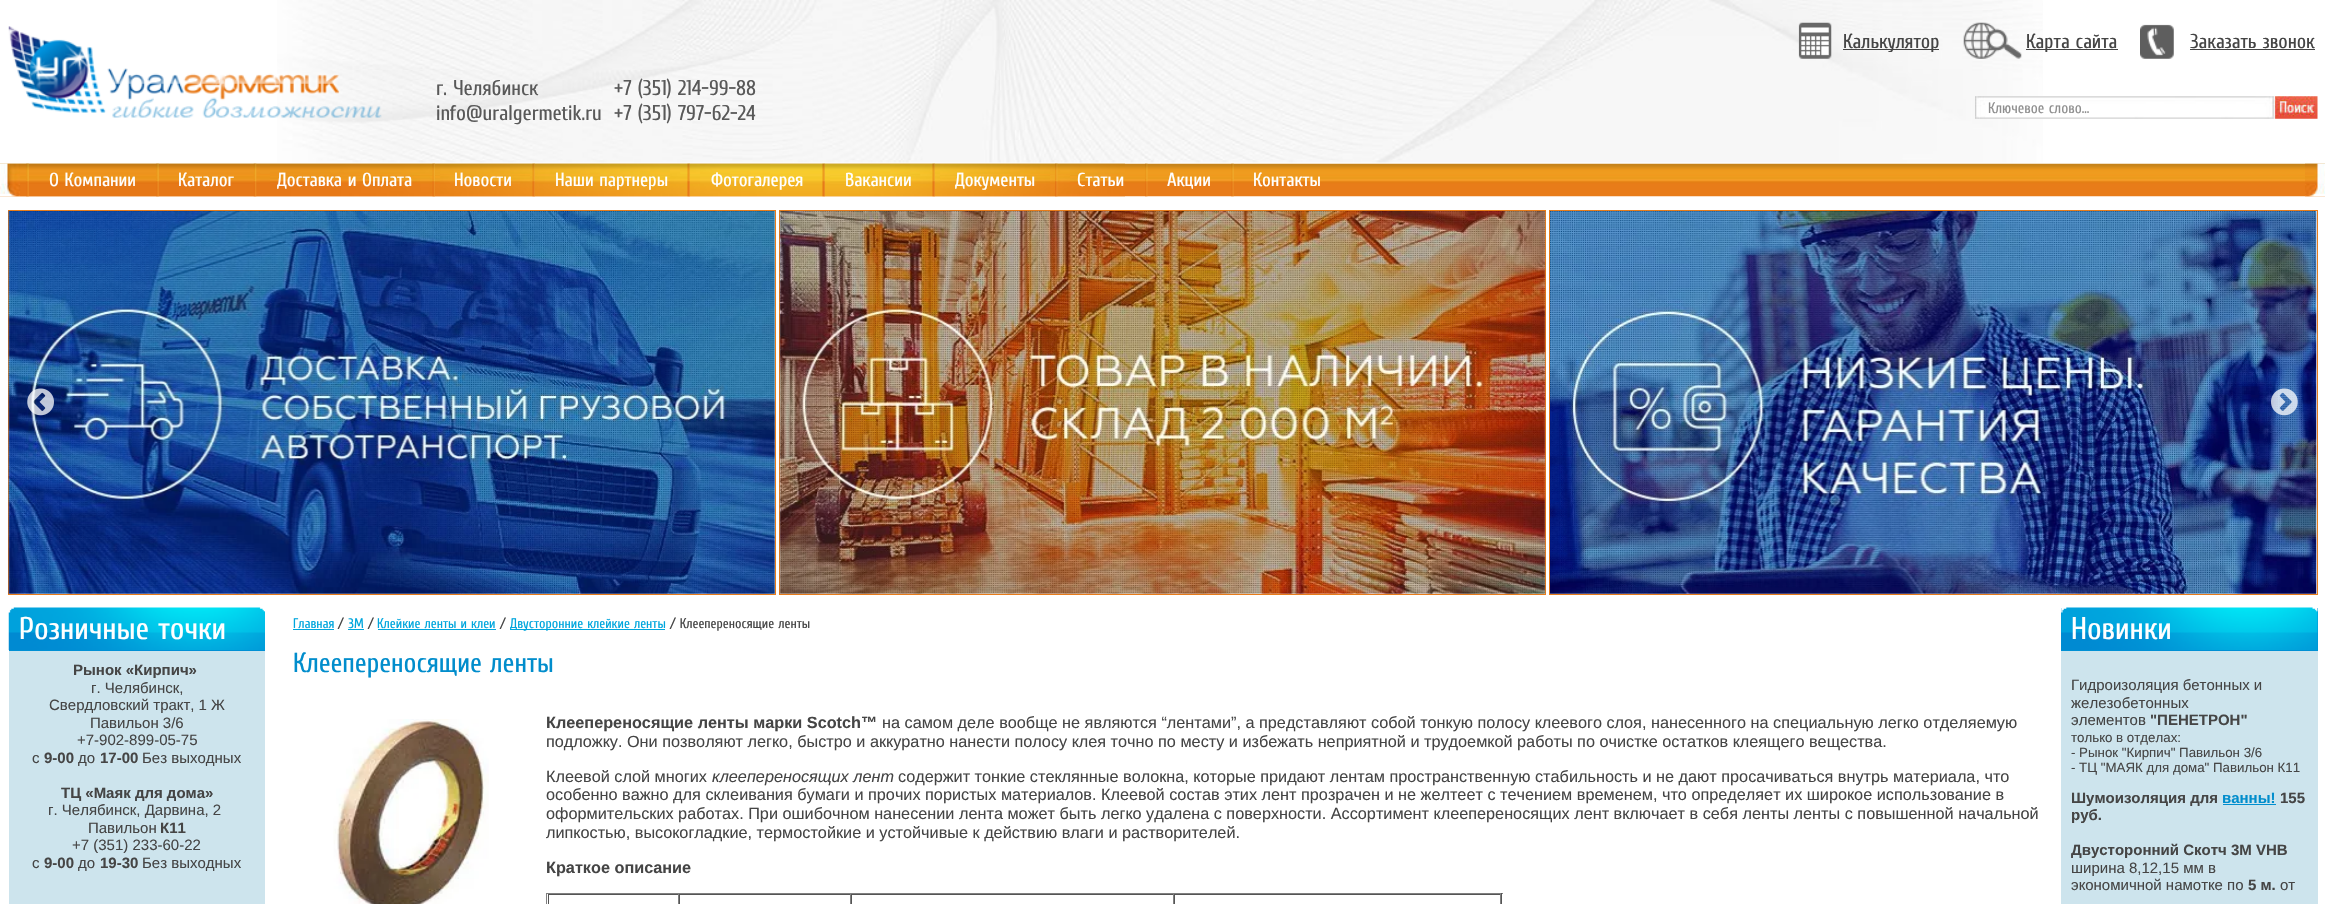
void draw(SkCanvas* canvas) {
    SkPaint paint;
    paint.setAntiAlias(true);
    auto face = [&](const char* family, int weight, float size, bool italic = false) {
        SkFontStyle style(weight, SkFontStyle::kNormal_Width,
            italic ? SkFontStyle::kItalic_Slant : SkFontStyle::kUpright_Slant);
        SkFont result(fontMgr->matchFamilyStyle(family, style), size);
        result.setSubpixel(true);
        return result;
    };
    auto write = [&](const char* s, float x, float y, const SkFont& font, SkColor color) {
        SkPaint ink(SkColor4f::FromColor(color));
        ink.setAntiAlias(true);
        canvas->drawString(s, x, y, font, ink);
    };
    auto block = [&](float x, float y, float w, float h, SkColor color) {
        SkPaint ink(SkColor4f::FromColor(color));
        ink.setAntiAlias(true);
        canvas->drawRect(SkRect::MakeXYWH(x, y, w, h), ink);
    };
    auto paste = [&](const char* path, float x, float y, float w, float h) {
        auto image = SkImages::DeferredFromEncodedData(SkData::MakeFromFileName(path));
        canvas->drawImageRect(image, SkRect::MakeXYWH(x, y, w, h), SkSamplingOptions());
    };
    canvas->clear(SK_ColorWHITE);
    paste("pic1.png", 277, 0, 1766, 163);
    paste("pic2.png", 8, 26, 374, 92);
    paste("pic3.png", 1798, 22, 34, 37);
    block(1843, 49, 96, 1, SkColorSetRGB(67, 67, 67));
    auto kFont1 = face("Cuprum", 400, 20);
    write("Калькулятор", 1843, 48, kFont1, SkColorSetRGB(69, 69, 69));
    paste("pic4.png", 1963, 22, 59, 37);
    block(2026, 49, 92, 1, SkColorSetRGB(67, 67, 67));
    write("Карта сайта", 2026, 48, kFont1, SkColorSetRGB(69, 69, 69));
    paste("pic5.png", 2140, 24, 34, 35);
    write("Заказать звонок", 2190, 48, kFont1, SkColorSetRGB(69, 69, 69));
    block(2190, 49, 125, 1, SkColorSetRGB(67, 67, 67));
    auto kFont2 = face("Cuprum", 400, 21.25f);
    write("г. Челябинск", 436, 95, kFont2, SkColorSetRGB(89, 89, 89));
    write("info@uralgermetik.ru", 436, 120, kFont2, SkColorSetRGB(89, 89, 89));
    write("+7 (351) 214-99-88", 614, 95, kFont2, SkColorSetRGB(89, 89, 89));
    write("+7 (351) 797-62-24", 614, 120, kFont2, SkColorSetRGB(89, 89, 89));
    paste("pic6.png", 1975, 96, 343, 23);
    auto kFont3 = face("Cuprum", 400, 15);
    write("Ключевое слово...", 1988, 113, kFont3, SkColorSetRGB(143, 143, 143));
    paste("pic7.png", 0, 163, 2325, 34);
    paste("pic8.png", 0, 163, 1125, 34);
    paste("pic9.png", 2305, 163, 20, 34);
    paste("pic10.png", 26, 163, 3, 34);
    auto kFont4 = face("Cuprum", 400, 18.75f);
    write("О Компании", 49, 186, kFont4, SK_ColorWHITE);
    paste("pic10.png", 156, 163, 3, 34);
    write("Каталог", 178, 186, kFont4, SK_ColorWHITE);
    paste("pic11.png", 253, 163, 4, 34);
    write("Доставка и Оплата", 277, 186, kFont4, SK_ColorWHITE);
    paste("pic12.png", 432, 163, 3, 34);
    write("Новости", 454, 186, kFont4, SK_ColorWHITE);
    paste("pic13.png", 532, 163, 3, 34);
    write("Наши партнеры", 555, 186, kFont4, SK_ColorWHITE);
    paste("pic14.png", 687, 163, 3, 34);
    write("Фотогалерея", 711, 186, kFont4, SK_ColorWHITE);
    paste("pic15.png", 822, 163, 3, 34);
    write("Вакансии", 845, 186, kFont4, SK_ColorWHITE);
    paste("pic16.png", 932, 163, 3, 34);
    write("Документы", 955, 186, kFont4, SK_ColorWHITE);
    paste("pic17.png", 1055, 163, 3, 34);
    write("Статьи", 1077, 186, kFont4, SK_ColorWHITE);
    paste("pic18.png", 1145, 163, 3, 34);
    write("Акции", 1167, 186, kFont4, SK_ColorWHITE);
    paste("pic19.png", 1231, 163, 3, 34);
    write("Контакты", 1253, 186, kFont4, SK_ColorWHITE);
    paint.setStyle(SkPaint::kStroke_Style);
    paint.setStrokeWidth(1);
    paint.setColor(SkColorSetRGB(232, 124, 25));
    canvas->drawRect(SkRect::MakeXYWH(8.5f, 210.5f, 767, 384), paint);
    paste("pic20.png", 8, 211, 767, 383);
    canvas->drawRect(SkRect::MakeXYWH(779.5f, 210.5f, 766, 384), paint);
    paste("pic21.png", 779, 211, 767, 383);
    canvas->drawRect(SkRect::MakeXYWH(1549.5f, 210.5f, 768, 384), paint);
    paste("pic22.png", 1550, 211, 767, 383);
    paste("pic23.png", 27, 388, 27, 28);
    paste("pic24.png", 2271, 388, 27, 28);
    block(9, 650, 256, 1, SkColorSetRGB(0, 144, 212));
    paste("pic25.png", 8, 607, 257, 43);
    auto kFont5 = face("Cuprum", 400, 31.25f);
    write("Розничные точки", 19, 639, kFont5, SK_ColorWHITE);
    block(9, 651, 256, 253, SkColorSetRGB(205, 228, 237));
    auto kFont6 = face("Liberation Sans", 700, 15);
    write("Рынок «Кирпич»", 73, 675, kFont6, SkColorSetRGB(69, 69, 69));
    auto kFont7 = face("Liberation Sans", 400, 15);
    write("г. Челябинск,", 91, 693, kFont7, SkColorSetRGB(69, 69, 69));
    write("Свердловский тракт, 1 Ж", 49, 710, kFont7, SkColorSetRGB(69, 69, 69));
    write("Павильон 3/6", 90, 728, kFont7, SkColorSetRGB(69, 69, 69));
    write("+7-902-899-05-75", 77, 745, kFont7, SkColorSetRGB(69, 69, 69));
    write("с", 32, 763, kFont7, SkColorSetRGB(69, 69, 69));
    write("9-00", 44, 763, kFont6, SkColorSetRGB(69, 69, 69));
    write("до", 78, 763, kFont7, SkColorSetRGB(69, 69, 69));
    write("17-00", 100, 763, kFont6, SkColorSetRGB(69, 69, 69));
    write("Без выходных", 142, 763, kFont7, SkColorSetRGB(69, 69, 69));
    write("ТЦ «Маяк для дома»", 61, 798, kFont6, SkColorSetRGB(69, 69, 69));
    write("г. Челябинск, Дарвина, 2", 48, 815, kFont7, SkColorSetRGB(69, 69, 69));
    write("Павильон", 88, 833, kFont7, SkColorSetRGB(69, 69, 69));
    write("К11", 160, 833, kFont6, SkColorSetRGB(69, 69, 69));
    write("+7 (351) 233-60-22", 72, 850, kFont7, SkColorSetRGB(69, 69, 69));
    write("с", 32, 868, kFont7, SkColorSetRGB(69, 69, 69));
    write("9-00", 44, 868, kFont6, SkColorSetRGB(69, 69, 69));
    write("до", 78, 868, kFont7, SkColorSetRGB(69, 69, 69));
    write("19-30", 100, 868, kFont6, SkColorSetRGB(69, 69, 69));
    write("Без выходных", 142, 868, kFont7, SkColorSetRGB(69, 69, 69));
    auto kFont8 = face("Cuprum", 400, 13.75f);
    write("Главная", 293, 628, kFont8, SkColorSetRGB(0, 166, 221));
    block(293, 629, 41, 1, SkColorSetRGB(0, 166, 221));
    write("/", 338, 628, kFont8, SkColorSetRGB(69, 69, 69));
    write("3М", 348, 628, kFont8, SkColorSetRGB(0, 166, 221));
    block(348, 629, 16, 1, SkColorSetRGB(0, 166, 221));
    write("/", 368, 628, kFont8, SkColorSetRGB(69, 69, 69));
    write("Клейкие ленты и клеи", 377, 628, kFont8, SkColorSetRGB(0, 166, 221));
    block(378, 629, 118, 1, SkColorSetRGB(0, 166, 221));
    write("/", 500, 628, kFont8, SkColorSetRGB(69, 69, 69));
    block(510, 629, 155, 1, SkColorSetRGB(0, 166, 221));
    write("Двусторонние клейкие ленты", 510, 628, kFont8, SkColorSetRGB(0, 166, 221));
    write("/ Клеепереносящие ленты", 670, 628, kFont8, SkColorSetRGB(69, 69, 69));
    auto kFont9 = face("Cuprum", 400, 27.5f);
    write("Клеепереносящие ленты", 293, 672, kFont9, SkColorSetRGB(1, 141, 204));
    paste("pic26.png", 333, 719, 156, 185);
    auto kFont10 = face("Liberation Sans", 700, 16.25f);
    write("Клеепереносящие ленты марки Scotch™", 546, 728, kFont10, SkColorSetRGB(69, 69, 69));
    auto kFont11 = face("Liberation Sans", 400, 16.25f);
    write("на самом деле вообще не являются “лентами”, а представляют собой тонкую полосу клеевого слоя, нанесенного на специальную легко отделяемую", 882, 728, kFont11, SkColorSetRGB(69, 69, 69));
    write("подложку. Они позволяют легко, быстро и аккуратно нанести полосу клея точно по месту и избежать неприятной и трудоемкой работы по очистке остатков клеящего вещества.", 546, 747, kFont11, SkColorSetRGB(69, 69, 69));
    write("Клеевой слой многих", 546, 782, kFont11, SkColorSetRGB(69, 69, 69));
    auto kFont12 = face("Liberation Sans", 400, 16.25f, true);
    write("клеепереносящих лент", 712, 782, kFont12, SkColorSetRGB(69, 69, 69));
    write("содержит тонкие стеклянные волокна, которые придают лентам пространственную стабильность и не дают просачиваться внутрь материала, что", 898, 782, kFont11, SkColorSetRGB(69, 69, 69));
    write("особенно важно для склеивания бумаги и прочих пористых материалов. Клеевой состав этих лент прозрачен и не желтеет с течением временем, что определяет их широкое использование в", 546, 800, kFont11, SkColorSetRGB(69, 69, 69));
    write("оформительских работах. При ошибочном нанесении лента может быть легко удалена с поверхности. Ассортимент клеепереносящих лент включает в себя ленты ленты с повышенной начальной", 546, 819, kFont11, SkColorSetRGB(69, 69, 69));
    write("липкостью, высокогладкие, термостойкие и устойчивые к действию влаги и растворителей.", 546, 838, kFont11, SkColorSetRGB(69, 69, 69));
    write("Краткое описание", 546, 873, kFont10, SkColorSetRGB(69, 69, 69));
    block(546, 893, 957, 1, SkColorSetRGB(128, 128, 128));
    block(1501, 893, 1, 11, SkColorSetRGB(85, 85, 85));
    block(546, 893, 1, 11, SkColorSetRGB(128, 128, 128));
    block(548, 894, 953, 1, SkColorSetRGB(85, 85, 85));
    block(678, 894, 1, 10, SkColorSetRGB(128, 128, 128));
    block(548, 894, 1, 10, SkColorSetRGB(85, 85, 85));
    block(850, 894, 1, 10, SkColorSetRGB(128, 128, 128));
    block(679, 894, 1, 10, SkColorSetRGB(85, 85, 85));
    block(1173, 894, 1, 10, SkColorSetRGB(128, 128, 128));
    block(851, 894, 1, 10, SkColorSetRGB(85, 85, 85));
    block(1500, 894, 1, 10, SkColorSetRGB(128, 128, 128));
    block(1174, 894, 1, 10, SkColorSetRGB(85, 85, 85));
    block(2061, 608, 257, 43, SkColorSetRGB(0, 144, 212));
    paste("pic27.png", 2061, 607, 257, 43);
    write("Новинки", 2071, 639, kFont5, SK_ColorWHITE);
    block(2061, 651, 257, 253, SkColorSetRGB(205, 228, 237));
    write("Гидроизоляция бетонных и", 2071, 690, kFont7, SkColorSetRGB(69, 69, 69));
    write("железобетонных", 2071, 708, kFont7, SkColorSetRGB(69, 69, 69));
    write("элементов", 2071, 725, kFont7, SkColorSetRGB(69, 69, 69));
    write("\"ПЕНЕТРОН\"", 2150, 725, kFont6, SkColorSetRGB(69, 69, 69));
    auto kFont13 = face("Liberation Sans", 400, 13.3f);
    write("только в отделах:", 2071, 742, kFont13, SkColorSetRGB(69, 69, 69));
    write("- Рынок \"Кирпич\" Павильон 3/6", 2071, 757, kFont13, SkColorSetRGB(69, 69, 69));
    write("- ТЦ \"МАЯК для дома\" Павильон К11", 2071, 772, kFont13, SkColorSetRGB(69, 69, 69));
    write("Шумоизоляция для", 2071, 803, kFont6, SkColorSetRGB(69, 69, 69));
    write("ванны!", 2222, 803, kFont6, SkColorSetRGB(1, 141, 204));
    block(2223, 804, 53, 1, SkColorSetRGB(1, 143, 208));
    write("155", 2280, 803, kFont6, SkColorSetRGB(69, 69, 69));
    write("руб.", 2071, 820, kFont6, SkColorSetRGB(69, 69, 69));
    write("Двусторонний Скотч 3М VHB", 2071, 855, kFont6, SkColorSetRGB(69, 69, 69));
    write("ширина 8,12,15 мм в", 2071, 873, kFont7, SkColorSetRGB(69, 69, 69));
    write("экономичной намотке по", 2071, 890, kFont7, SkColorSetRGB(69, 69, 69));
    write("5 м.", 2248, 890, kFont6, SkColorSetRGB(69, 69, 69));
    write("от", 2280, 890, kFont7, SkColorSetRGB(69, 69, 69));
}
